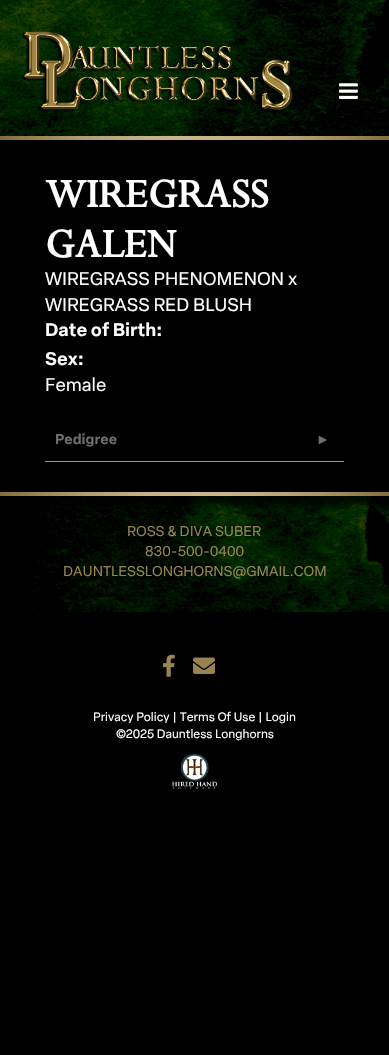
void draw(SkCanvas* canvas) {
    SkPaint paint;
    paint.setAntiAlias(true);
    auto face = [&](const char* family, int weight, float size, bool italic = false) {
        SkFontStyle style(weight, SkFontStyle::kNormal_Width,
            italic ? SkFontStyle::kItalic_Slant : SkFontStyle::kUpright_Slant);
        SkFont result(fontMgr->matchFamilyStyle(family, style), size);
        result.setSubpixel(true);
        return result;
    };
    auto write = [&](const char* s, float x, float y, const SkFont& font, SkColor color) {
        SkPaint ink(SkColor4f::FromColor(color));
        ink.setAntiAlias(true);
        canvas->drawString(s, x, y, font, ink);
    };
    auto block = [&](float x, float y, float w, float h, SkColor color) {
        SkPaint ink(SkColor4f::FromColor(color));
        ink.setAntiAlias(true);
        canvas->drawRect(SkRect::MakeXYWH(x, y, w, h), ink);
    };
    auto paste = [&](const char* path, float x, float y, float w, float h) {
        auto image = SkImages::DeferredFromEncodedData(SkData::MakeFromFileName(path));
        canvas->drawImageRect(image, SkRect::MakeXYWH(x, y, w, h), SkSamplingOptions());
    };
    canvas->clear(SK_ColorBLACK);
    paste("pic1.png", 0, 0, 389, 136);
    paste("pic2.png", 0, 136, 389, 4);
    paste("pic3.png", 21, 31, 272, 81);
    paste("pic4.png", 339, 83, 19, 16);
    auto kFont1 = face("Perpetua", 700, 45);
    write("WIREGRASS", 45, 207, kFont1, SK_ColorWHITE);
    write("GALEN", 45, 257, kFont1, SK_ColorWHITE);
    auto kFont2 = face("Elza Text", 400, 18);
    write("WIREGRASS PHENOMENON x", 45, 285, kFont2, SK_ColorWHITE);
    write("WIREGRASS RED BLUSH", 45, 311, kFont2, SK_ColorWHITE);
    auto kFont3 = face("Elza Text", 600, 18);
    write("Date of Birth:", 45, 336, kFont3, SK_ColorWHITE);
    write("Sex:", 45, 365, kFont3, SK_ColorWHITE);
    write("Female", 45, 391, kFont2, SK_ColorWHITE);
    block(45, 461, 299, 1, SkColorSetRGB(155, 153, 153));
    auto kFont4 = face("Elza Text", 600, 14);
    write("Pedigree", 55, 444, kFont4, SkColorSetRGB(114, 111, 111));
    auto kFont5 = face("Liberation Sans", 700, 14);
    write("►", 316, 444, kFont5, SkColorSetRGB(114, 111, 111));
    paste("pic5.png", 0, 496, 389, 116);
    paste("pic6.png", 0, 492, 389, 4);
    auto kFont6 = face("Elza Text", 400, 14);
    write("ROSS & DIVA SUBER", 127, 536, kFont6, SkColorSetRGB(152, 131, 82));
    write("830-500-0400", 145, 556, kFont6, SkColorSetRGB(152, 131, 82));
    write("DAUNTLESSLONGHORNS@GMAIL.COM", 63, 576, kFont6, SkColorSetRGB(152, 131, 82));
    paste("pic7.png", 163, 654, 12, 23);
    paste("pic8.png", 193, 657, 22, 17);
    auto kFont7 = face("Elza Text", 400, 12);
    write("Privacy Policy | Terms Of Use | Login", 93, 721, kFont7, SK_ColorWHITE);
    write("©2025 Dauntless Longhorns", 116, 738, kFont7, SK_ColorWHITE);
    paste("pic9.png", 172, 754, 45, 35);
}
